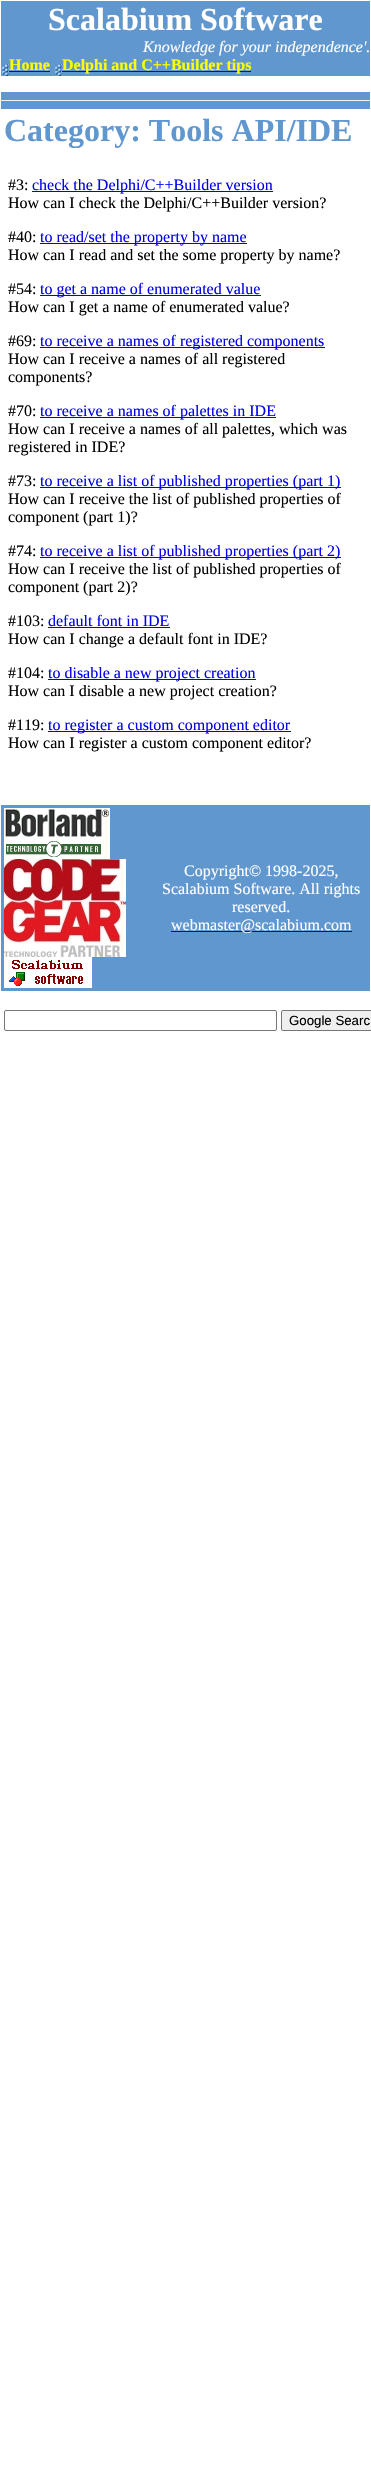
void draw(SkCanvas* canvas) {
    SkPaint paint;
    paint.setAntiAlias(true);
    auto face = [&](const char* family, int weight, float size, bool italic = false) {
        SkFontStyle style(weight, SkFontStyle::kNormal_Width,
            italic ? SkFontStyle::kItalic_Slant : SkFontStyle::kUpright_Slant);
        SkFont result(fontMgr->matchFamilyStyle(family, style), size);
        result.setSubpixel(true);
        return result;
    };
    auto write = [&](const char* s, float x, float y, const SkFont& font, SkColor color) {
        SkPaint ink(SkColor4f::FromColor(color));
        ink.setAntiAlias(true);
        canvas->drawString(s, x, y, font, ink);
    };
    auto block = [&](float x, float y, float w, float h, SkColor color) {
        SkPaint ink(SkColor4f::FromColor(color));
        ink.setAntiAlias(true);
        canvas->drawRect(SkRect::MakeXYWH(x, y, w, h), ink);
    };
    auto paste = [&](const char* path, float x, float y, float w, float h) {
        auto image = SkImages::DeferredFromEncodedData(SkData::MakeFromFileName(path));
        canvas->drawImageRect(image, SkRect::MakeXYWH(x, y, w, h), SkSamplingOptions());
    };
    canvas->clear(SK_ColorWHITE);
    block(1, 1, 369, 75, SkColorSetRGB(96, 151, 207));
    auto kFont1 = face("Liberation Serif", 700, 32);
    write("Scalabium Software", 48, 30, kFont1, SK_ColorWHITE);
    auto kFont2 = face("Liberation Serif", 400, 16, true);
    write("Knowledge for your independence'.", 143, 52, kFont2, SK_ColorWHITE);
    paste("pic1.png", 1, 64, 8, 12);
    auto kFont3 = face("Liberation Serif", 700, 16);
    write("Home", 9, 70, kFont3, SkColorSetRGB(255, 255, 0));
    block(9, 71, 41, 1, SkColorSetRGB(0, 0, 238));
    paste("pic1.png", 54, 64, 8, 12);
    block(62, 71, 189, 1, SkColorSetRGB(0, 0, 238));
    write("Delphi and C++Builder tips", 62, 70, kFont3, SkColorSetRGB(255, 255, 0));
    block(1, 92, 369, 17, SkColorSetRGB(96, 151, 207));
    block(1, 100, 369, 1, SkColorSetRGB(241, 241, 241));
    write("Category: Tools API/IDE", 4, 141, kFont1, SkColorSetRGB(96, 151, 207));
    auto kFont4 = face("Liberation Serif", 400, 16);
    write("#3:", 8, 190, kFont4, SK_ColorBLACK);
    block(32, 191, 241, 1, SkColorSetRGB(0, 0, 238));
    write("check the Delphi/C++Builder version", 32, 190, kFont4, SkColorSetRGB(0, 0, 238));
    write("How can I check the Delphi/C++Builder version?", 8, 208, kFont4, SK_ColorBLACK);
    write("#40:", 8, 242, kFont4, SK_ColorBLACK);
    block(40, 243, 207, 1, SkColorSetRGB(0, 0, 238));
    write("to read/set the property by name", 40, 242, kFont4, SkColorSetRGB(0, 0, 238));
    write("How can I read and set the some property by name?", 8, 260, kFont4, SK_ColorBLACK);
    write("#54:", 8, 294, kFont4, SK_ColorBLACK);
    block(40, 295, 221, 1, SkColorSetRGB(0, 0, 238));
    write("to get a name of enumerated value", 40, 294, kFont4, SkColorSetRGB(0, 0, 238));
    write("How can I get a name of enumerated value?", 8, 312, kFont4, SK_ColorBLACK);
    write("#69:", 8, 346, kFont4, SK_ColorBLACK);
    block(40, 347, 285, 1, SkColorSetRGB(0, 0, 238));
    write("to receive a names of registered components", 40, 346, kFont4, SkColorSetRGB(0, 0, 238));
    write("How can I receive a names of all registered", 8, 364, kFont4, SK_ColorBLACK);
    write("components?", 8, 382, kFont4, SK_ColorBLACK);
    write("#70:", 8, 416, kFont4, SK_ColorBLACK);
    block(40, 417, 236, 1, SkColorSetRGB(0, 0, 238));
    write("to receive a names of palettes in IDE", 40, 416, kFont4, SkColorSetRGB(0, 0, 238));
    write("How can I receive a names of all palettes, which was", 8, 434, kFont4, SK_ColorBLACK);
    write("registered in IDE?", 8, 452, kFont4, SK_ColorBLACK);
    write("#73:", 8, 486, kFont4, SK_ColorBLACK);
    block(40, 487, 301, 1, SkColorSetRGB(0, 0, 238));
    write("to receive a list of published properties (part 1)", 40, 486, kFont4, SkColorSetRGB(0, 0, 238));
    write("How can I receive the list of published properties of", 8, 504, kFont4, SK_ColorBLACK);
    write("component (part 1)?", 8, 522, kFont4, SK_ColorBLACK);
    write("#74:", 8, 556, kFont4, SK_ColorBLACK);
    block(40, 557, 301, 1, SkColorSetRGB(0, 0, 238));
    write("to receive a list of published properties (part 2)", 40, 556, kFont4, SkColorSetRGB(0, 0, 238));
    write("How can I receive the list of published properties of", 8, 574, kFont4, SK_ColorBLACK);
    write("component (part 2)?", 8, 592, kFont4, SK_ColorBLACK);
    write("#103:", 8, 626, kFont4, SK_ColorBLACK);
    write("default font in IDE", 48, 626, kFont4, SkColorSetRGB(0, 0, 238));
    block(48, 627, 122, 1, SkColorSetRGB(0, 0, 238));
    write("How can I change a default font in IDE?", 8, 644, kFont4, SK_ColorBLACK);
    write("#104:", 8, 678, kFont4, SK_ColorBLACK);
    block(48, 679, 208, 1, SkColorSetRGB(0, 0, 238));
    write("to disable a new project creation", 48, 678, kFont4, SkColorSetRGB(0, 0, 238));
    write("How can I disable a new project creation?", 8, 696, kFont4, SK_ColorBLACK);
    write("#119:", 8, 730, kFont4, SK_ColorBLACK);
    block(48, 731, 243, 1, SkColorSetRGB(0, 0, 238));
    write("to register a custom component editor", 48, 730, kFont4, SkColorSetRGB(0, 0, 238));
    write("How can I register a custom component editor?", 8, 748, kFont4, SK_ColorBLACK);
    block(1, 805, 369, 186, SkColorSetRGB(96, 151, 207));
    paste("pic2.png", 4, 808, 106, 51);
    paste("pic3.png", 4, 859, 122, 98);
    paste("pic4.png", 4, 957, 88, 31);
    write("Copyright© 1998-2025,", 184, 876, kFont4, SK_ColorWHITE);
    write("Scalabium Software. All rights", 162, 894, kFont4, SK_ColorWHITE);
    write("reserved.", 232, 912, kFont4, SK_ColorWHITE);
    block(171, 931, 181, 1, SkColorSetRGB(0, 0, 238));
    write("webmaster@scalabium.com", 171, 930, kFont4, SK_ColorWHITE);
    paint.setStyle(SkPaint::kStroke_Style);
    paint.setStrokeWidth(1);
    paint.setColor(SkColorSetRGB(118, 118, 118));
    canvas->drawRoundRect(SkRect::MakeXYWH(4.5f, 1010.5f, 272, 20), 1.5f, 1.5f, paint);
    paint.setStyle(SkPaint::kFill_Style);
    paint.setColor(SkColorSetRGB(239, 239, 239));
    canvas->drawRoundRect(SkRect::MakeXYWH(281.5f, 1010.5f, 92, 20), 1.5f, 1.5f, paint);
    paint.setStyle(SkPaint::kStroke_Style);
    paint.setColor(SkColorSetRGB(118, 118, 118));
    canvas->drawRoundRect(SkRect::MakeXYWH(281.5f, 1010.5f, 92, 20), 1.5f, 1.5f, paint);
    auto kFont5 = face("Liberation Sans", 400, 13.25f);
    write("Google Searc", 289, 1025, kFont5, SK_ColorBLACK);
}
